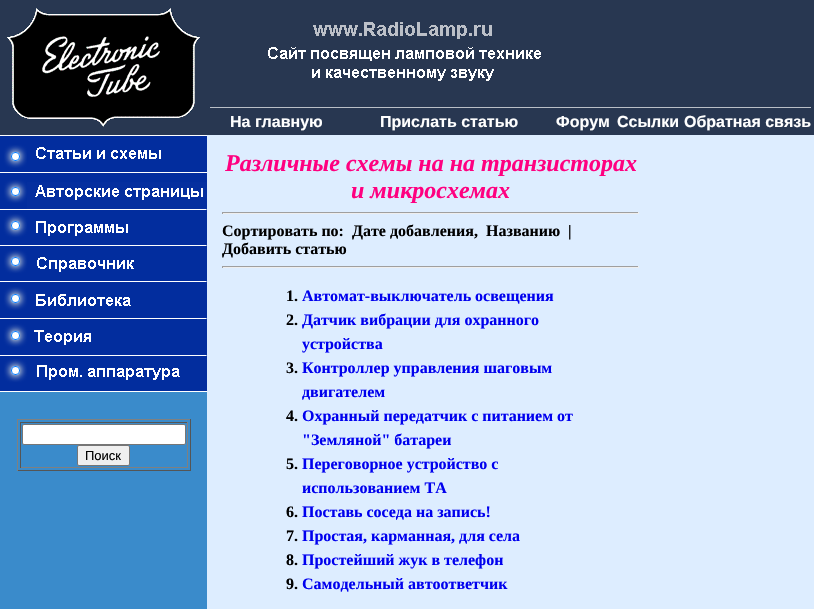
void draw(SkCanvas* canvas) {
    SkPaint paint;
    paint.setAntiAlias(true);
    auto face = [&](const char* family, int weight, float size, bool italic = false) {
        SkFontStyle style(weight, SkFontStyle::kNormal_Width,
            italic ? SkFontStyle::kItalic_Slant : SkFontStyle::kUpright_Slant);
        SkFont result(fontMgr->matchFamilyStyle(family, style), size);
        result.setSubpixel(true);
        return result;
    };
    auto write = [&](const char* s, float x, float y, const SkFont& font, SkColor color) {
        SkPaint ink(SkColor4f::FromColor(color));
        ink.setAntiAlias(true);
        canvas->drawString(s, x, y, font, ink);
    };
    auto block = [&](float x, float y, float w, float h, SkColor color) {
        SkPaint ink(SkColor4f::FromColor(color));
        ink.setAntiAlias(true);
        canvas->drawRect(SkRect::MakeXYWH(x, y, w, h), ink);
    };
    auto paste = [&](const char* path, float x, float y, float w, float h) {
        auto image = SkImages::DeferredFromEncodedData(SkData::MakeFromFileName(path));
        canvas->drawImageRect(image, SkRect::MakeXYWH(x, y, w, h), SkSamplingOptions());
    };
    canvas->clear(SkColorSetRGB(40, 55, 81));
    paste("pic1.png", 0, 0, 207, 135);
    paste("pic2.png", 268, 22, 273, 59);
    block(210, 107, 601, 1, SkColorSetRGB(186, 191, 199));
    auto kFont1 = face("Liberation Sans", 700, 16);
    write("На главную", 230, 127, kFont1, SK_ColorWHITE);
    write("Прислать статью", 380, 127, kFont1, SK_ColorWHITE);
    write("Форум", 556, 127, kFont1, SK_ColorWHITE);
    write("Ссылки", 617, 127, kFont1, SK_ColorWHITE);
    write("Обратная связь", 684, 127, kFont1, SK_ColorWHITE);
    block(0, 392, 207, 217, SkColorSetRGB(58, 139, 203));
    paste("pic3.png", 0, 135, 207, 37);
    paste("pic4.png", 0, 172, 207, 37);
    paste("pic5.png", 0, 209, 207, 37);
    paste("pic6.png", 0, 246, 207, 37);
    paste("pic7.png", 0, 283, 207, 37);
    paste("pic8.png", 0, 320, 207, 37);
    paste("pic9.png", 0, 357, 207, 35);
    block(17, 419, 174, 1, SkColorSetRGB(128, 128, 128));
    block(190, 419, 1, 52, SkColorSetRGB(85, 85, 85));
    block(17, 470, 174, 1, SkColorSetRGB(85, 85, 85));
    block(17, 419, 1, 52, SkColorSetRGB(128, 128, 128));
    block(20, 422, 168, 1, SkColorSetRGB(85, 85, 85));
    block(187, 422, 1, 46, SkColorSetRGB(128, 128, 128));
    block(20, 467, 168, 1, SkColorSetRGB(128, 128, 128));
    block(20, 422, 1, 46, SkColorSetRGB(85, 85, 85));
    paint.setColor(SK_ColorWHITE);
    canvas->drawRoundRect(SkRect::MakeXYWH(22.5f, 424.5f, 163, 20), 1.5f, 1.5f, paint);
    paint.setStyle(SkPaint::kStroke_Style);
    paint.setStrokeWidth(1);
    paint.setColor(SkColorSetRGB(118, 118, 118));
    canvas->drawRoundRect(SkRect::MakeXYWH(22.5f, 424.5f, 163, 20), 1.5f, 1.5f, paint);
    paint.setStyle(SkPaint::kFill_Style);
    paint.setColor(SkColorSetRGB(239, 239, 239));
    canvas->drawRoundRect(SkRect::MakeXYWH(77.5f, 445.5f, 52, 20), 1.5f, 1.5f, paint);
    paint.setStyle(SkPaint::kStroke_Style);
    paint.setColor(SkColorSetRGB(118, 118, 118));
    canvas->drawRoundRect(SkRect::MakeXYWH(77.5f, 445.5f, 52, 20), 1.5f, 1.5f, paint);
    auto kFont2 = face("Liberation Sans", 400, 13);
    write("Поиск", 85, 460, kFont2, SK_ColorBLACK);
    block(207, 135, 607, 474, SkColorSetRGB(221, 237, 255));
    auto kFont3 = face("Liberation Serif", 700, 24, true);
    write("Различные схемы на на транзисторах", 225, 171, kFont3, SkColorSetRGB(255, 0, 128));
    write("и микросхемах", 351, 198, kFont3, SkColorSetRGB(255, 0, 128));
    block(222, 212, 417, 1, SkColorSetRGB(159, 159, 159));
    block(638, 212, 1, 2, SkColorSetRGB(238, 238, 238));
    block(222, 213, 417, 1, SkColorSetRGB(238, 238, 238));
    block(222, 212, 1, 2, SkColorSetRGB(159, 159, 159));
    auto kFont4 = face("Liberation Serif", 700, 16);
    write("Сортировать по:", 222, 236, kFont4, SK_ColorBLACK);
    write("Дате добавления,", 352, 236, kFont4, SK_ColorBLACK);
    write("Названию", 486, 236, kFont4, SK_ColorBLACK);
    write("|", 568, 236, kFont4, SK_ColorBLACK);
    write("Добавить статью", 222, 254, kFont4, SK_ColorBLACK);
    block(222, 266, 417, 1, SkColorSetRGB(159, 159, 159));
    block(638, 266, 1, 2, SkColorSetRGB(238, 238, 238));
    block(222, 267, 417, 1, SkColorSetRGB(238, 238, 238));
    block(222, 266, 1, 2, SkColorSetRGB(159, 159, 159));
    write("1.", 286, 301, kFont4, SK_ColorBLACK);
    write("Автомат-выключатель освещения", 302, 301, kFont4, SkColorSetRGB(0, 0, 238));
    write("2.", 286, 325, kFont4, SK_ColorBLACK);
    write("Датчик вибрации для охранного", 302, 325, kFont4, SkColorSetRGB(0, 0, 238));
    write("устройства", 302, 349, kFont4, SkColorSetRGB(0, 0, 238));
    write("3.", 286, 373, kFont4, SK_ColorBLACK);
    write("Контроллер управления шаговым", 302, 373, kFont4, SkColorSetRGB(0, 0, 238));
    write("двигателем", 302, 397, kFont4, SkColorSetRGB(0, 0, 238));
    write("4.", 286, 421, kFont4, SK_ColorBLACK);
    write("Охранный передатчик с питанием от", 302, 421, kFont4, SkColorSetRGB(0, 0, 238));
    write("\"Земляной\" батареи", 302, 445, kFont4, SkColorSetRGB(0, 0, 238));
    write("5.", 286, 469, kFont4, SK_ColorBLACK);
    write("Переговорное устройство с", 302, 469, kFont4, SkColorSetRGB(0, 0, 238));
    write("использованием ТА", 302, 493, kFont4, SkColorSetRGB(0, 0, 238));
    write("6.", 286, 517, kFont4, SK_ColorBLACK);
    write("Поставь соседа на запись!", 302, 517, kFont4, SkColorSetRGB(0, 0, 238));
    write("7.", 286, 541, kFont4, SK_ColorBLACK);
    write("Простая, карманная, для села", 302, 541, kFont4, SkColorSetRGB(0, 0, 238));
    write("8.", 286, 565, kFont4, SK_ColorBLACK);
    write("Простейший жук в телефон", 302, 565, kFont4, SkColorSetRGB(0, 0, 238));
    write("9.", 286, 589, kFont4, SK_ColorBLACK);
    write("Самодельный автоответчик", 302, 589, kFont4, SkColorSetRGB(0, 0, 238));
}
